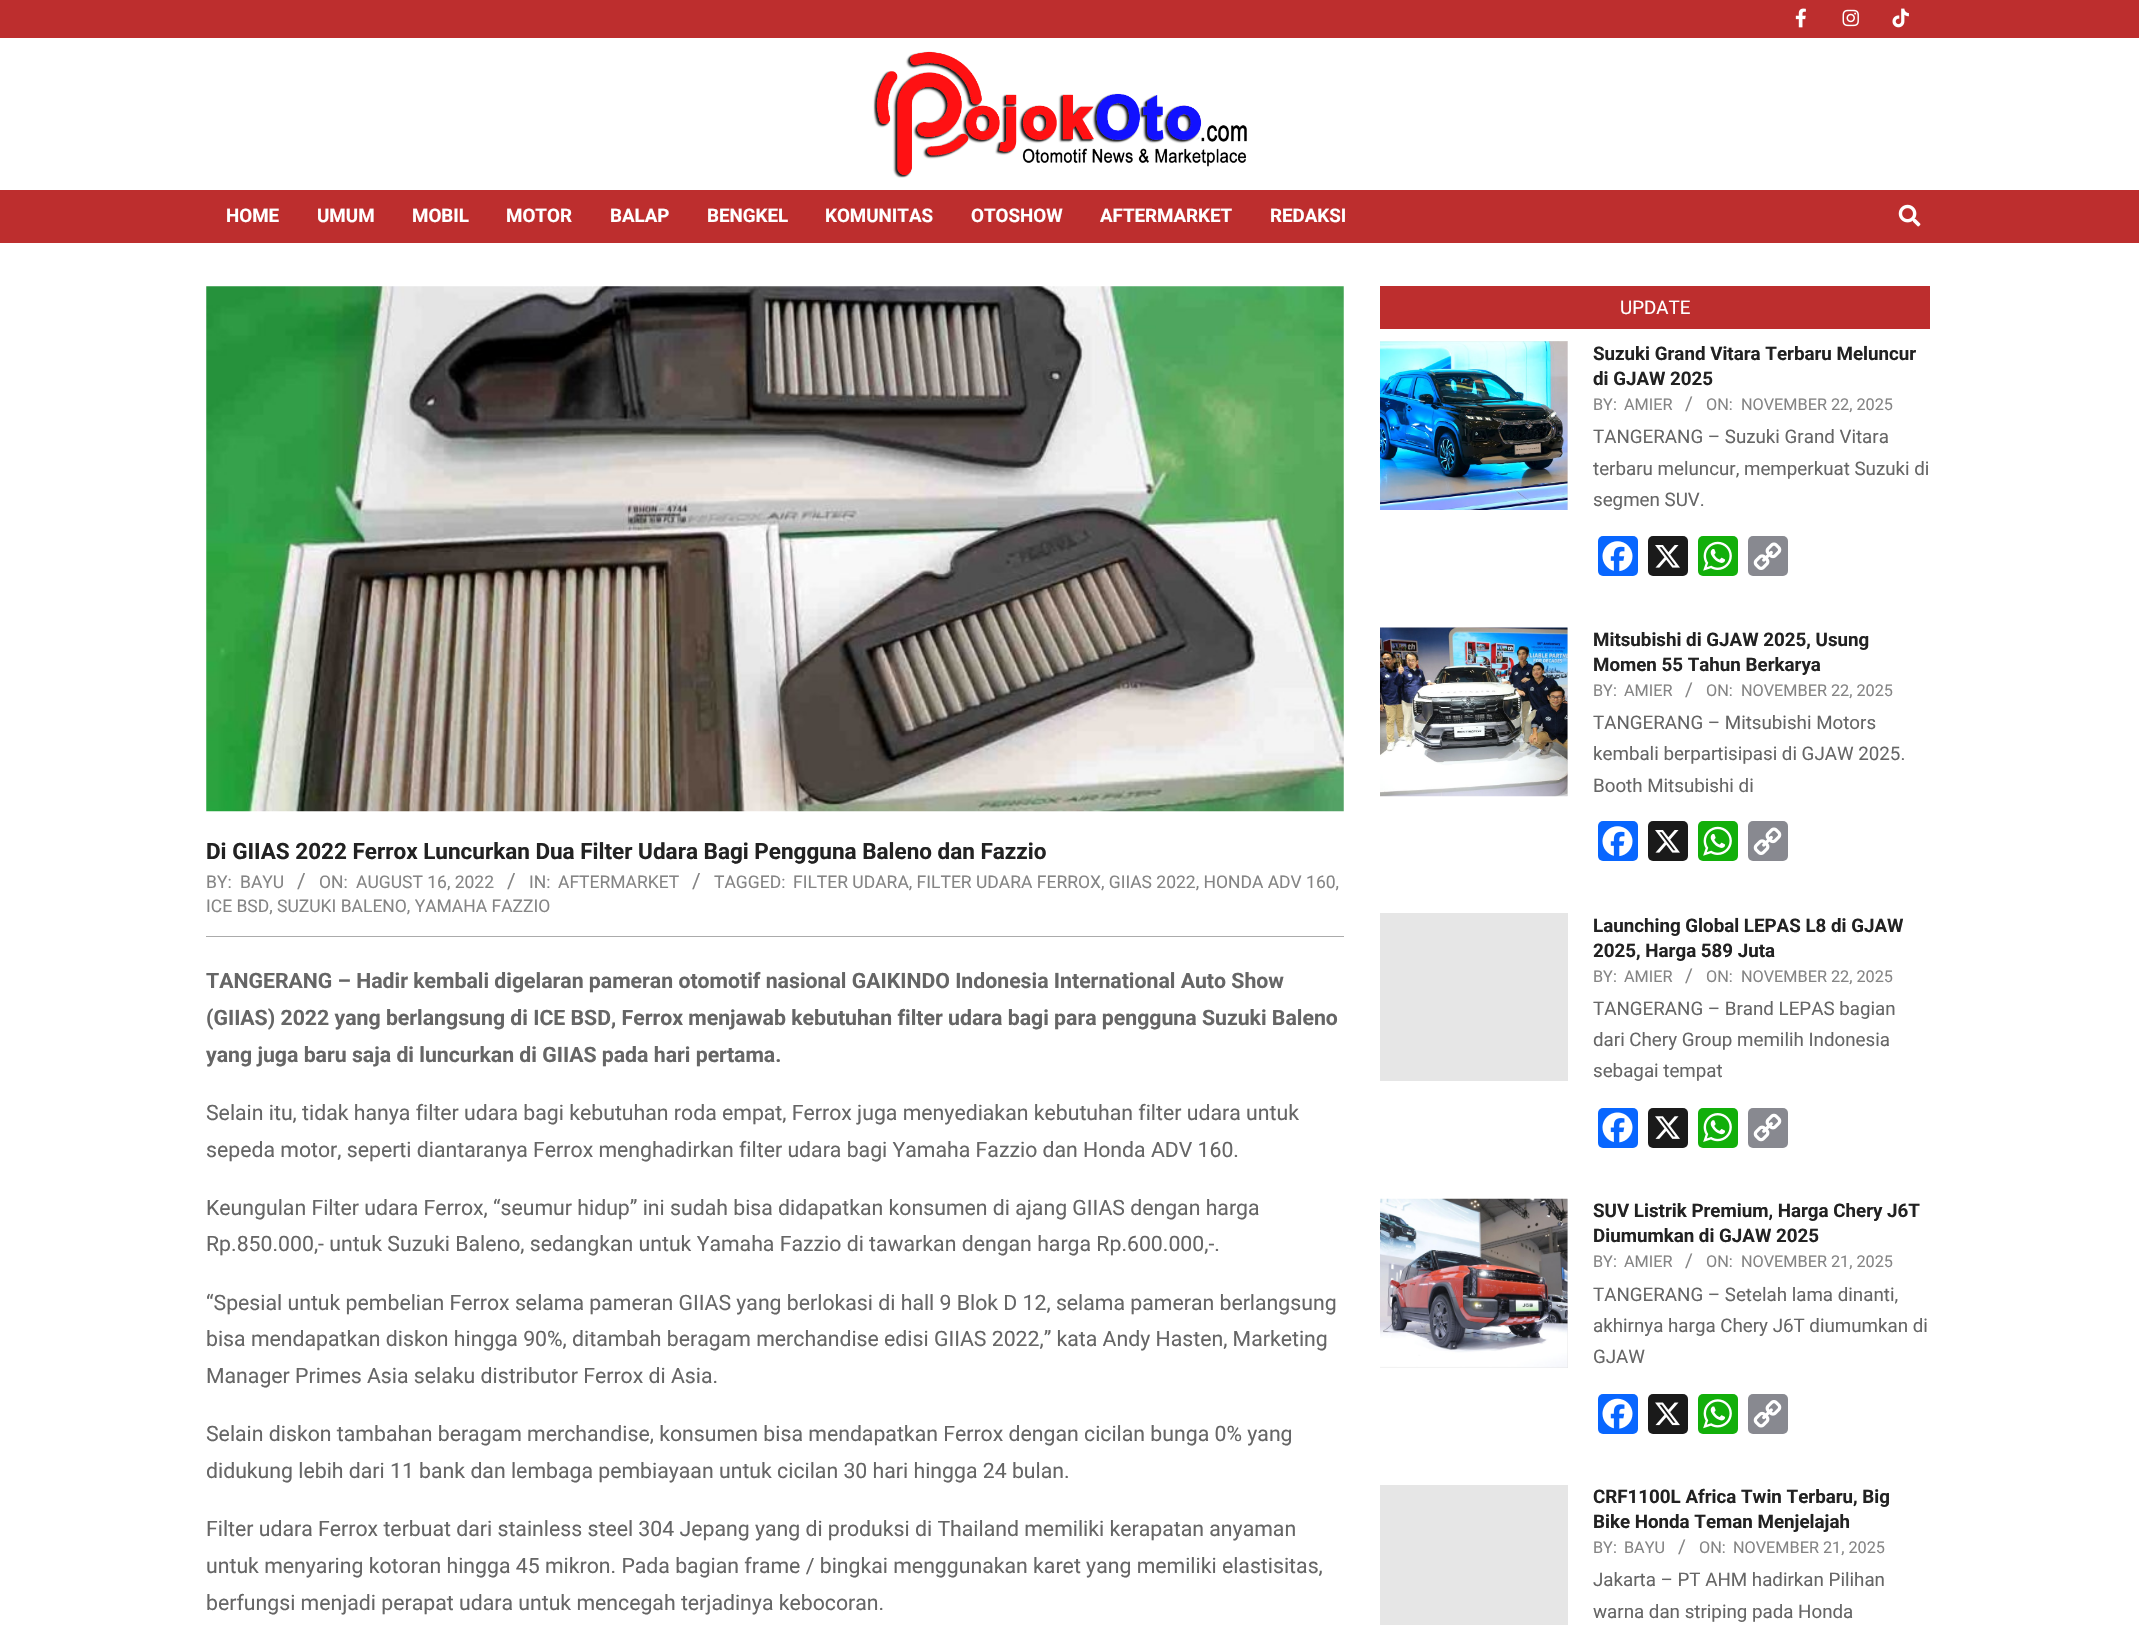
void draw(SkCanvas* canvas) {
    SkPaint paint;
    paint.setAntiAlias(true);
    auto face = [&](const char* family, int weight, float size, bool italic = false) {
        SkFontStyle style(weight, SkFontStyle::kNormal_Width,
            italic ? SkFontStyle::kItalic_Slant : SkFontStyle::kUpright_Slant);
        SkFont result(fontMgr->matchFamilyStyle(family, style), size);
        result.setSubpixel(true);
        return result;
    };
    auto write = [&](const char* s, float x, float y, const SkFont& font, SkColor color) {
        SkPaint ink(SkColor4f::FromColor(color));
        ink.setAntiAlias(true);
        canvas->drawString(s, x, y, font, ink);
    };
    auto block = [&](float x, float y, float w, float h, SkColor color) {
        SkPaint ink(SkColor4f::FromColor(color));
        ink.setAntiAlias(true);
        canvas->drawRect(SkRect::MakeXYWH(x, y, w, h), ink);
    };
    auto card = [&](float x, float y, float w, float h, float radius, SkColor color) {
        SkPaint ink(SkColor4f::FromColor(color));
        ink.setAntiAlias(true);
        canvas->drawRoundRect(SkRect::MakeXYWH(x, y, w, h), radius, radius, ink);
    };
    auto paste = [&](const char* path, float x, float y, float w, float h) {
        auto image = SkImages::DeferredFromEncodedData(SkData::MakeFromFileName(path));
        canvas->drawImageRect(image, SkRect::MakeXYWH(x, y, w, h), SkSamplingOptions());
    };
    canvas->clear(SK_ColorWHITE);
    block(0, 0, 2139, 38, SkColorSetRGB(189, 46, 46));
    paste("pic1.png", 1795, 8, 11, 20);
    paste("pic2.png", 1842, 9, 17, 18);
    paste("pic3.png", 1892, 8, 17, 20);
    paste("pic4.png", 873, 51, 374, 127);
    block(0, 190, 2139, 53, SkColorSetRGB(189, 46, 46));
    auto kFont1 = face("Roboto", 700, 18.75f);
    write("HOME", 226, 222, kFont1, SK_ColorWHITE);
    write("UMUM", 317, 222, kFont1, SK_ColorWHITE);
    write("MOBIL", 412, 222, kFont1, SK_ColorWHITE);
    write("MOTOR", 506, 222, kFont1, SK_ColorWHITE);
    write("BALAP", 610, 222, kFont1, SK_ColorWHITE);
    write("BENGKEL", 707, 222, kFont1, SK_ColorWHITE);
    write("KOMUNITAS", 825, 222, kFont1, SK_ColorWHITE);
    write("OTOSHOW", 971, 222, kFont1, SK_ColorWHITE);
    write("AFTERMARKET", 1100, 222, kFont1, SK_ColorWHITE);
    write("REDAKSI", 1270, 222, kFont1, SK_ColorWHITE);
    paste("pic5.png", 1898, 204, 23, 23);
    paste("pic6.png", 206, 286, 1138, 526);
    block(206, 936, 1138, 1, SkColorSetRGB(171, 171, 171));
    auto kFont2 = face("Roboto", 700, 22.5f);
    write("Di GIIAS 2022 Ferrox Luncurkan Dua Filter Udara Bagi Pengguna Baleno dan Fazzio", 206, 859, kFont2, SkColorSetRGB(34, 34, 34));
    auto kFont3 = face("Roboto", 400, 17.5f);
    write("BY:", 206, 888, kFont3, SkColorSetRGB(133, 133, 133));
    write("BAYU", 240, 888, kFont3, SkColorSetRGB(133, 133, 133));
    auto kFont4 = face("Roboto", 400, 21);
    write("/", 297, 888, kFont4, SkColorSetRGB(133, 133, 133));
    write("ON:", 319, 888, kFont3, SkColorSetRGB(133, 133, 133));
    write("AUGUST 16, 2022", 356, 888, kFont3, SkColorSetRGB(133, 133, 133));
    write("/", 507, 888, kFont4, SkColorSetRGB(133, 133, 133));
    write("IN:", 529, 888, kFont3, SkColorSetRGB(133, 133, 133));
    write("AFTERMARKET", 558, 888, kFont3, SkColorSetRGB(133, 133, 133));
    write("/", 692, 888, kFont4, SkColorSetRGB(133, 133, 133));
    write("TAGGED:", 714, 888, kFont3, SkColorSetRGB(133, 133, 133));
    write("FILTER UDARA, FILTER UDARA FERROX, GIIAS 2022, HONDA ADV 160,", 793, 888, kFont3, SkColorSetRGB(133, 133, 133));
    write("ICE BSD, SUZUKI BALENO, YAMAHA FAZZIO", 206, 912, kFont3, SkColorSetRGB(133, 133, 133));
    auto kFont5 = face("Roboto", 700, 21.25f);
    write("TANGERANG – Hadir kembali digelaran pameran otomotif nasional GAIKINDO Indonesia International Auto Show", 206, 988, kFont5, SkColorSetRGB(102, 102, 102));
    write("(GIIAS) 2022 yang berlangsung di ICE BSD, Ferrox menjawab kebutuhan filter udara bagi para pengguna Suzuki Baleno", 206, 1025, kFont5, SkColorSetRGB(102, 102, 102));
    write("yang juga baru saja di luncurkan di GIIAS pada hari pertama.", 206, 1062, kFont5, SkColorSetRGB(102, 102, 102));
    auto kFont6 = face("Roboto", 400, 21.25f);
    write("Selain itu, tidak hanya filter udara bagi kebutuhan roda empat, Ferrox juga menyediakan kebutuhan filter udara untuk", 206, 1120, kFont6, SkColorSetRGB(102, 102, 102));
    write("sepeda motor, seperti diantaranya Ferrox menghadirkan filter udara bagi Yamaha Fazzio dan Honda ADV 160.", 206, 1157, kFont6, SkColorSetRGB(102, 102, 102));
    write("Keungulan Filter udara Ferrox, “seumur hidup” ini sudah bisa didapatkan konsumen di ajang GIIAS dengan harga", 206, 1215, kFont6, SkColorSetRGB(102, 102, 102));
    write("Rp.850.000,- untuk Suzuki Baleno, sedangkan untuk Yamaha Fazzio di tawarkan dengan harga Rp.600.000,-.", 206, 1251, kFont6, SkColorSetRGB(102, 102, 102));
    write("“Spesial untuk pembelian Ferrox selama pameran GIIAS yang berlokasi di hall 9 Blok D 12, selama pameran berlangsung", 206, 1310, kFont6, SkColorSetRGB(102, 102, 102));
    write("bisa mendapatkan diskon hingga 90%, ditambah beragam merchandise edisi GIIAS 2022,” kata Andy Hasten, Marketing", 206, 1346, kFont6, SkColorSetRGB(102, 102, 102));
    write("Manager Primes Asia selaku distributor Ferrox di Asia.", 206, 1383, kFont6, SkColorSetRGB(102, 102, 102));
    write("Selain diskon tambahan beragam merchandise, konsumen bisa mendapatkan Ferrox dengan cicilan bunga 0% yang", 206, 1441, kFont6, SkColorSetRGB(102, 102, 102));
    write("didukung lebih dari 11 bank dan lembaga pembiayaan untuk cicilan 30 hari hingga 24 bulan.", 206, 1478, kFont6, SkColorSetRGB(102, 102, 102));
    write("Filter udara Ferrox terbuat dari stainless steel 304 Jepang yang di produksi di Thailand memiliki kerapatan anyaman", 206, 1536, kFont6, SkColorSetRGB(102, 102, 102));
    write("untuk menyaring kotoran hingga 45 mikron. Pada bagian frame / bingkai menggunakan karet yang memiliki elastisitas,", 206, 1573, kFont6, SkColorSetRGB(102, 102, 102));
    write("berfungsi menjadi perapat udara untuk mencegah terjadinya kebocoran.", 206, 1610, kFont6, SkColorSetRGB(102, 102, 102));
    block(1380, 286, 550, 43, SkColorSetRGB(189, 46, 46));
    auto kFont7 = face("Roboto", 400, 18.75f);
    write("UPDATE", 1620, 314, kFont7, SK_ColorWHITE);
    block(1380, 341, 188, 169, SkColorSetRGB(230, 230, 230));
    paste("pic7.png", 1380, 341, 188, 169);
    write("Suzuki Grand Vitara Terbaru Meluncur", 1593, 360, kFont1, SkColorSetRGB(34, 34, 34));
    write("di GJAW 2025", 1593, 385, kFont1, SkColorSetRGB(34, 34, 34));
    auto kFont8 = face("Roboto", 400, 16.25f);
    write("BY:", 1593, 410, kFont8, SkColorSetRGB(133, 133, 133));
    write("AMIER", 1624, 410, kFont8, SkColorSetRGB(133, 133, 133));
    auto kFont9 = face("Roboto", 400, 19);
    write("/", 1685, 410, kFont9, SkColorSetRGB(133, 133, 133));
    write("ON:", 1706, 410, kFont8, SkColorSetRGB(133, 133, 133));
    write("NOVEMBER 22, 2025", 1741, 410, kFont8, SkColorSetRGB(133, 133, 133));
    write("TANGERANG – Suzuki Grand Vitara", 1593, 443, kFont7, SkColorSetRGB(102, 102, 102));
    write("terbaru meluncur, memperkuat Suzuki di", 1593, 475, kFont7, SkColorSetRGB(102, 102, 102));
    write("segmen SUV.", 1593, 506, kFont7, SkColorSetRGB(102, 102, 102));
    card(1598, 536, 40, 40, 5, SkColorSetRGB(8, 102, 255));
    paste("pic8.png", 1602, 541, 31, 31);
    card(1648, 536, 40, 40, 5, SkColorSetRGB(26, 26, 26));
    paste("pic9.png", 1655, 545, 25, 23);
    card(1698, 536, 40, 40, 5, SkColorSetRGB(18, 175, 10));
    paste("pic10.png", 1703, 541, 29, 30);
    card(1748, 536, 40, 40, 5, SkColorSetRGB(136, 137, 144));
    paste("pic11.png", 1753, 542, 29, 28);
    block(1567, 628, 1, 168, SkColorSetRGB(230, 230, 230));
    paste("pic12.png", 1380, 627, 188, 170);
    write("Mitsubishi di GJAW 2025, Usung", 1593, 646, kFont1, SkColorSetRGB(34, 34, 34));
    write("Momen 55 Tahun Berkarya", 1593, 671, kFont1, SkColorSetRGB(34, 34, 34));
    write("BY:", 1593, 696, kFont8, SkColorSetRGB(133, 133, 133));
    write("AMIER", 1624, 696, kFont8, SkColorSetRGB(133, 133, 133));
    write("/", 1685, 696, kFont9, SkColorSetRGB(133, 133, 133));
    write("ON:", 1706, 696, kFont8, SkColorSetRGB(133, 133, 133));
    write("NOVEMBER 22, 2025", 1741, 696, kFont8, SkColorSetRGB(133, 133, 133));
    write("TANGERANG – Mitsubishi Motors", 1593, 729, kFont7, SkColorSetRGB(102, 102, 102));
    write("kembali berpartisipasi di GJAW 2025.", 1593, 760, kFont7, SkColorSetRGB(102, 102, 102));
    write("Booth Mitsubishi di", 1593, 792, kFont7, SkColorSetRGB(102, 102, 102));
    card(1598, 821, 40, 40, 5, SkColorSetRGB(8, 102, 255));
    paste("pic8.png", 1602, 826, 31, 31);
    card(1648, 821, 40, 40, 5, SkColorSetRGB(26, 26, 26));
    paste("pic9.png", 1655, 830, 25, 23);
    card(1698, 821, 40, 40, 5, SkColorSetRGB(18, 175, 10));
    paste("pic10.png", 1703, 826, 29, 30);
    card(1748, 821, 40, 40, 5, SkColorSetRGB(136, 137, 144));
    paste("pic11.png", 1753, 827, 29, 28);
    block(1380, 913, 188, 168, SkColorSetRGB(230, 230, 230));
    write("Launching Global LEPAS L8 di GJAW", 1593, 932, kFont1, SkColorSetRGB(34, 34, 34));
    write("2025, Harga 589 Juta", 1593, 957, kFont1, SkColorSetRGB(34, 34, 34));
    write("BY:", 1593, 982, kFont8, SkColorSetRGB(133, 133, 133));
    write("AMIER", 1624, 982, kFont8, SkColorSetRGB(133, 133, 133));
    write("/", 1685, 982, kFont9, SkColorSetRGB(133, 133, 133));
    write("ON:", 1706, 982, kFont8, SkColorSetRGB(133, 133, 133));
    write("NOVEMBER 22, 2025", 1741, 982, kFont8, SkColorSetRGB(133, 133, 133));
    write("TANGERANG – Brand LEPAS bagian", 1593, 1015, kFont7, SkColorSetRGB(102, 102, 102));
    write("dari Chery Group memilih Indonesia", 1593, 1046, kFont7, SkColorSetRGB(102, 102, 102));
    write("sebagai tempat", 1593, 1077, kFont7, SkColorSetRGB(102, 102, 102));
    card(1598, 1108, 40, 40, 5, SkColorSetRGB(8, 102, 255));
    paste("pic13.png", 1602, 1112, 31, 31);
    card(1648, 1108, 40, 40, 5, SkColorSetRGB(26, 26, 26));
    paste("pic14.png", 1655, 1116, 25, 23);
    card(1698, 1108, 40, 40, 5, SkColorSetRGB(18, 175, 10));
    paste("pic15.png", 1703, 1113, 29, 29);
    card(1748, 1108, 40, 40, 5, SkColorSetRGB(136, 137, 144));
    paste("pic16.png", 1753, 1113, 29, 29);
    block(1380, 1199, 188, 169, SkColorSetRGB(230, 230, 230));
    paste("pic17.png", 1380, 1198, 188, 170);
    write("SUV Listrik Premium, Harga Chery J6T", 1593, 1217, kFont1, SkColorSetRGB(34, 34, 34));
    write("Diumumkan di GJAW 2025", 1593, 1242, kFont1, SkColorSetRGB(34, 34, 34));
    write("BY:", 1593, 1267, kFont8, SkColorSetRGB(133, 133, 133));
    write("AMIER", 1624, 1267, kFont8, SkColorSetRGB(133, 133, 133));
    write("/", 1685, 1267, kFont9, SkColorSetRGB(133, 133, 133));
    write("ON:", 1706, 1267, kFont8, SkColorSetRGB(133, 133, 133));
    write("NOVEMBER 21, 2025", 1741, 1267, kFont8, SkColorSetRGB(133, 133, 133));
    write("TANGERANG – Setelah lama dinanti,", 1593, 1301, kFont7, SkColorSetRGB(102, 102, 102));
    write("akhirnya harga Chery J6T diumumkan di", 1593, 1332, kFont7, SkColorSetRGB(102, 102, 102));
    write("GJAW", 1593, 1363, kFont7, SkColorSetRGB(102, 102, 102));
    card(1598, 1394, 40, 40, 5, SkColorSetRGB(8, 102, 255));
    paste("pic18.png", 1602, 1398, 31, 31);
    card(1648, 1394, 40, 40, 5, SkColorSetRGB(26, 26, 26));
    paste("pic19.png", 1655, 1402, 25, 24);
    card(1698, 1394, 40, 40, 5, SkColorSetRGB(18, 175, 10));
    paste("pic20.png", 1703, 1399, 29, 30);
    card(1748, 1394, 40, 40, 5, SkColorSetRGB(136, 137, 144));
    paste("pic21.png", 1753, 1400, 29, 28);
    block(1380, 1485, 188, 140, SkColorSetRGB(230, 230, 230));
    write("CRF1100L Africa Twin Terbaru, Big", 1593, 1503, kFont1, SkColorSetRGB(34, 34, 34));
    write("Bike Honda Teman Menjelajah", 1593, 1528, kFont1, SkColorSetRGB(34, 34, 34));
    write("BY:", 1593, 1553, kFont8, SkColorSetRGB(133, 133, 133));
    write("BAYU", 1624, 1553, kFont8, SkColorSetRGB(133, 133, 133));
    write("/", 1678, 1553, kFont9, SkColorSetRGB(133, 133, 133));
    write("ON:", 1699, 1553, kFont8, SkColorSetRGB(133, 133, 133));
    write("NOVEMBER 21, 2025", 1733, 1553, kFont8, SkColorSetRGB(133, 133, 133));
    write("Jakarta – PT AHM hadirkan Pilihan", 1593, 1586, kFont7, SkColorSetRGB(102, 102, 102));
    write("warna dan striping pada Honda", 1593, 1618, kFont7, SkColorSetRGB(102, 102, 102));
}
